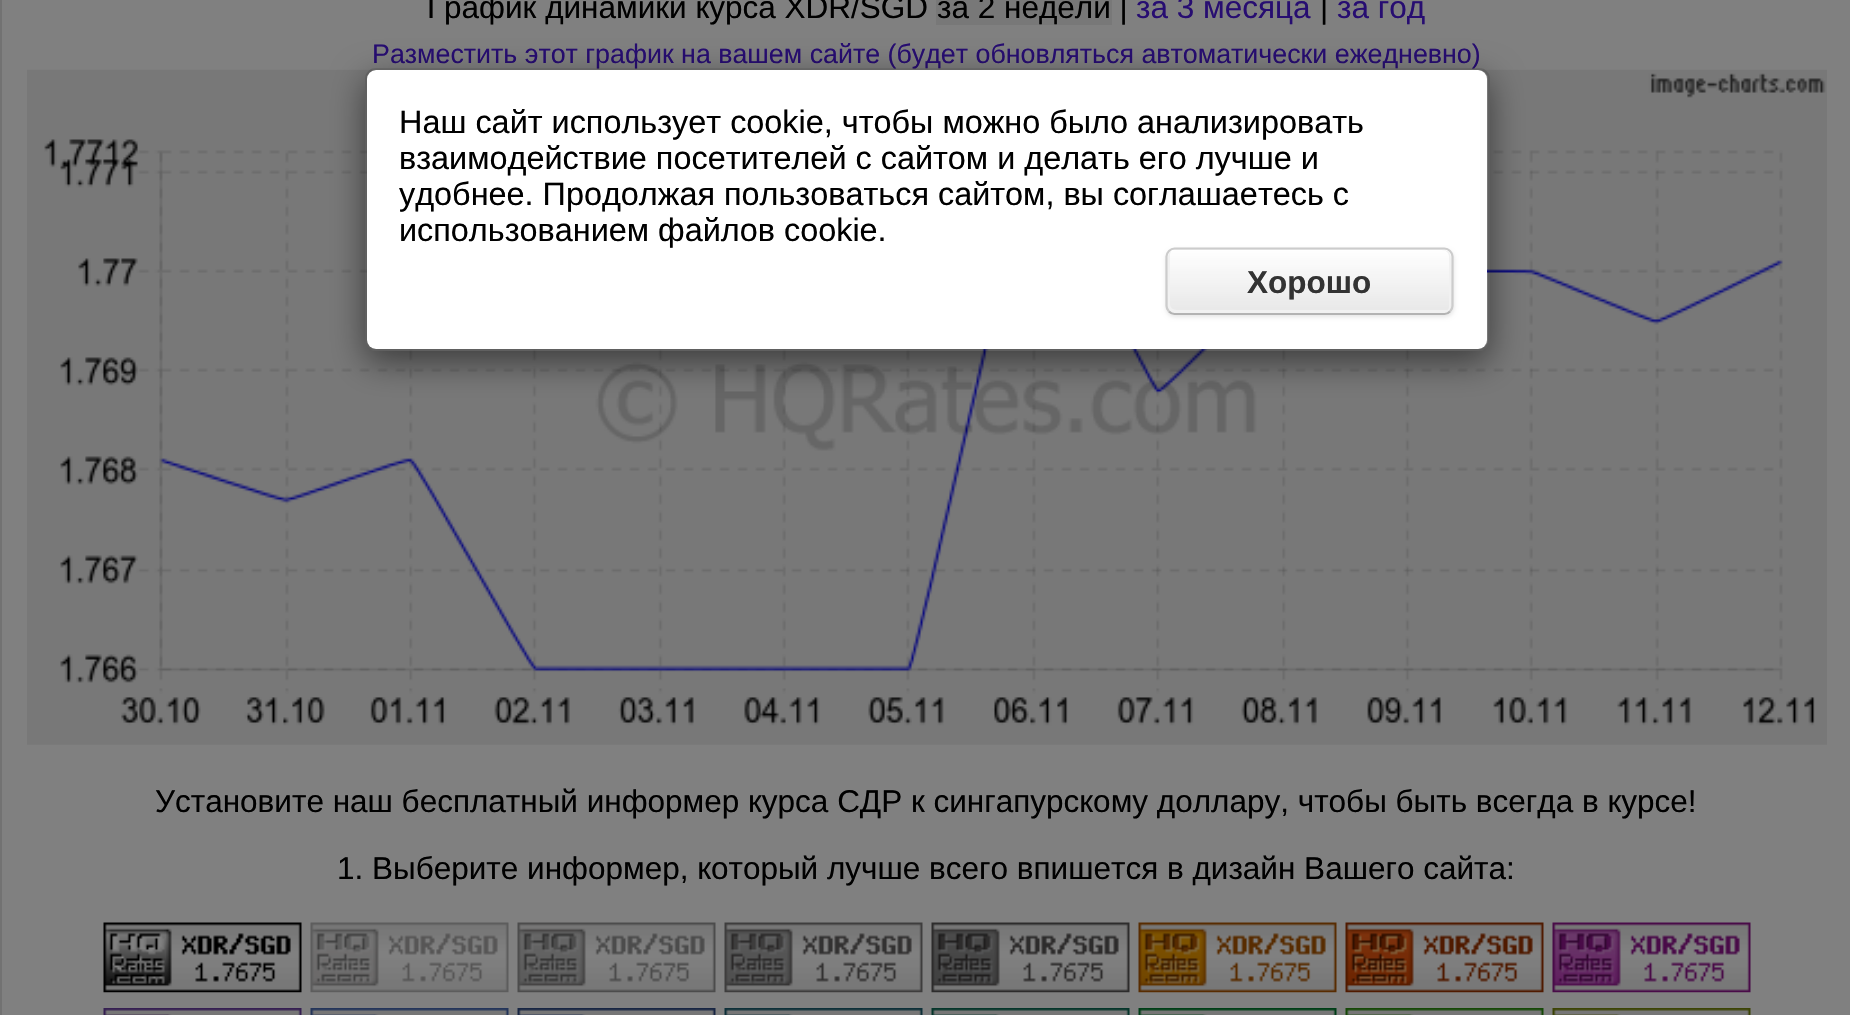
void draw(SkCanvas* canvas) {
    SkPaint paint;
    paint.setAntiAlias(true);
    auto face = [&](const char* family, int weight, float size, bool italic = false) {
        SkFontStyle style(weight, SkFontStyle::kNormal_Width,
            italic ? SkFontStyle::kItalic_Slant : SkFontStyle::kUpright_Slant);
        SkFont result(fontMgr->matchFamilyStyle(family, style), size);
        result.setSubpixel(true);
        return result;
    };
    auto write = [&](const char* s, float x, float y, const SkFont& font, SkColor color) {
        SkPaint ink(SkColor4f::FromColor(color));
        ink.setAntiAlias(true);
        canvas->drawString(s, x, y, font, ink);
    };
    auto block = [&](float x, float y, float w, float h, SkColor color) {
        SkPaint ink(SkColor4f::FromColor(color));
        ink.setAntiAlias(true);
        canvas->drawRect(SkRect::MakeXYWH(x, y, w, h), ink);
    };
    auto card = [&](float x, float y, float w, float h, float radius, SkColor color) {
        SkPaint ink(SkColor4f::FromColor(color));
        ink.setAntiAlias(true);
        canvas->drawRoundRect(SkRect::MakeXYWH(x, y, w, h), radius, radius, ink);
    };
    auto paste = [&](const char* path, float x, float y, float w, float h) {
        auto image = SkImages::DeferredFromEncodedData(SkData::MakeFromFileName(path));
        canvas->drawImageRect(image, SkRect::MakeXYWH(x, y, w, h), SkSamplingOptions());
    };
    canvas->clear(SkColorSetRGB(128, 128, 128));
    paint.setStyle(SkPaint::kStroke_Style);
    paint.setStrokeWidth(2);
    paint.setColor(SkColorSetRGB(114, 114, 114));
    canvas->drawRect(SkRect::MakeXYWH(1, -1, 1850, 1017), paint);
    auto kFont1 = face("Liberation Sans", 400, 31.5f);
    write("График динамики курса XDR/SGD", 427, 18, kFont1, SK_ColorBLACK);
    block(936, 0, 176, 25, SkColorSetRGB(120, 120, 120));
    write("за 2 недели |", 937, 18, kFont1, SK_ColorBLACK);
    write("за 3 месяца", 1136, 18, kFont1, SkColorSetRGB(39, 13, 113));
    write("|", 1320, 18, kFont1, SK_ColorBLACK);
    write("за год", 1337, 18, kFont1, SkColorSetRGB(39, 13, 113));
    auto kFont2 = face("Liberation Sans", 400, 26.8f);
    write("Разместить этот график на вашем сайте (будет обновляться автоматически ежедневно)", 372, 63, kFont2, SkColorSetRGB(39, 13, 113));
    paste("pic1.png", 27, 69, 1800, 676);
    write("Установите наш бесплатный информер курса СДР к сингапурскому доллару, чтобы быть всегда в курсе!", 155, 812, kFont1, SK_ColorBLACK);
    write("1. Выберите информер, который лучше всего впишется в дизайн Вашего сайта:", 337, 879, kFont1, SK_ColorBLACK);
    paste("pic2.png", 103, 922, 199, 71);
    paste("pic3.png", 310, 922, 199, 71);
    paste("pic4.png", 517, 922, 199, 71);
    paste("pic5.png", 724, 922, 199, 71);
    paste("pic6.png", 931, 922, 199, 71);
    paste("pic7.png", 1138, 922, 199, 71);
    paste("pic8.png", 1345, 922, 199, 71);
    paste("pic9.png", 1552, 922, 199, 71);
    paste("pic10.png", 103, 1008, 199, 7);
    paste("pic11.png", 310, 1008, 199, 7);
    paste("pic12.png", 517, 1008, 199, 7);
    paste("pic13.png", 724, 1008, 199, 7);
    paste("pic14.png", 931, 1008, 199, 7);
    paste("pic15.png", 1138, 1008, 199, 7);
    paste("pic16.png", 1345, 1008, 199, 7);
    paste("pic17.png", 1552, 1008, 199, 7);
    canvas->save();
    canvas->clipPath(SkPathBuilder(SkPathFillType::kEvenOdd).moveTo(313, 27).lineTo(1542, 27).lineTo(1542, 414).lineTo(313, 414).close().moveTo(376, 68).lineTo(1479, 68).cubicTo(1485, 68, 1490, 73, 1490, 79).lineTo(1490, 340).cubicTo(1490, 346, 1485, 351, 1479, 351).lineTo(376, 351).cubicTo(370, 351, 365, 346, 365, 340).lineTo(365, 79).cubicTo(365, 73, 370, 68, 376, 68).close().detach(), true);
    paint.setStyle(SkPaint::kFill_Style);
    paint.setColor(SkColorSetARGB(128, 0, 0, 0));
    paint.setMaskFilter(SkMaskFilter::MakeBlur(kNormal_SkBlurStyle, 17));
    canvas->drawRoundRect(SkRect::MakeXYWH(365, 79, 1125, 283), 11, 11, paint);
    paint.setMaskFilter(nullptr);
    canvas->restore();
    card(367, 70, 1120, 279, 9, SK_ColorWHITE);
    paint.setStyle(SkPaint::kStroke_Style);
    paint.setColor(SkColorSetARGB(51, 0, 0, 0));
    canvas->drawRoundRect(SkRect::MakeXYWH(366, 69, 1123, 281), 10, 10, paint);
    auto kFont3 = face("Liberation Sans", 400, 32.4f);
    write("Наш сайт использует cookie, чтобы можно было анализировать", 399, 133, kFont3, SK_ColorBLACK);
    write("взаимодействие посетителей с сайтом и делать его лучше и", 399, 169, kFont3, SK_ColorBLACK);
    write("удобнее. Продолжая пользоваться сайтом, вы соглашаетесь с", 399, 205, kFont3, SK_ColorBLACK);
    write("использованием файлов cookie.", 399, 241, kFont3, SK_ColorBLACK);
    paint.setStyle(SkPaint::kFill_Style);
    paint.setColor(SkColorSetARGB(26, 0, 0, 0));
    paint.setMaskFilter(SkMaskFilter::MakeBlur(kNormal_SkBlurStyle, 2));
    canvas->drawRoundRect(SkRect::MakeXYWH(1166, 250, 288, 67), 9, 9, paint);
    paint.setMaskFilter(nullptr);
    card(1166, 248, 288, 67, 9, SkColorSetRGB(241, 241, 241));
    paste("pic18.png", 1166, 250, 287, 65);
    paint.setColor(SkColorSetRGB(241, 241, 241));
    canvas->drawPath(SkPathBuilder().moveTo(1442, 313).cubicTo(1452, 313, 1451, 306, 1451, 298).lineTo(1451, 265).cubicTo(1451, 257, 1452, 250, 1442, 250).cubicTo(1446, 250, 1449, 253, 1449, 256).lineTo(1449, 306).cubicTo(1449, 310, 1446, 313, 1442, 313).close().detach(), paint);
    canvas->drawPath(SkPathBuilder().moveTo(1171, 251).cubicTo(1169, 253, 1168, 255, 1168, 257).lineTo(1168, 306).cubicTo(1168, 310, 1171, 313, 1175, 313).lineTo(1444, 313).cubicTo(1447, 313, 1449, 311, 1450, 309).lineTo(1447, 310).lineTo(1177, 310).cubicTo(1173, 310, 1170, 307, 1170, 304).lineTo(1170, 254).close().detach(), paint);
    paint.setStyle(SkPaint::kStroke_Style);
    paint.setStrokeWidth(2.2f);
    paint.setColor(SkColorSetRGB(179, 179, 179));
    canvas->drawPath(SkPathBuilder().moveTo(1450, 311.5f).cubicTo(1448.5f, 313, 1446.5f, 314, 1444.5f, 314).lineTo(1174.5f, 314).cubicTo(1172.5f, 314, 1170.5f, 313, 1169, 311.5f).detach(), paint);
    paint.setColor(SkColorSetRGB(204, 204, 204));
    canvas->drawPath(SkPathBuilder().moveTo(1169, 311.5f).cubicTo(1167.5f, 310, 1166.5f, 308, 1166.5f, 306).lineTo(1166.5f, 256.5f).cubicTo(1166.5f, 254.5f, 1167.5f, 252.5f, 1169, 251).cubicTo(1170.5f, 249.5f, 1172.5f, 248.5f, 1174.5f, 248.5f).lineTo(1444.5f, 248.5f).cubicTo(1446.5f, 248.5f, 1448.5f, 249.5f, 1450, 251).cubicTo(1451.5f, 252.5f, 1452.5f, 254.5f, 1452.5f, 256.5f).lineTo(1452.5f, 306).cubicTo(1452.5f, 308, 1451.5f, 310, 1450, 311.5f).detach(), paint);
    auto kFont4 = face("Liberation Sans", 700, 31.5f);
    write("Хорошо", 1247, 293, kFont4, SkColorSetRGB(51, 51, 51));
}
